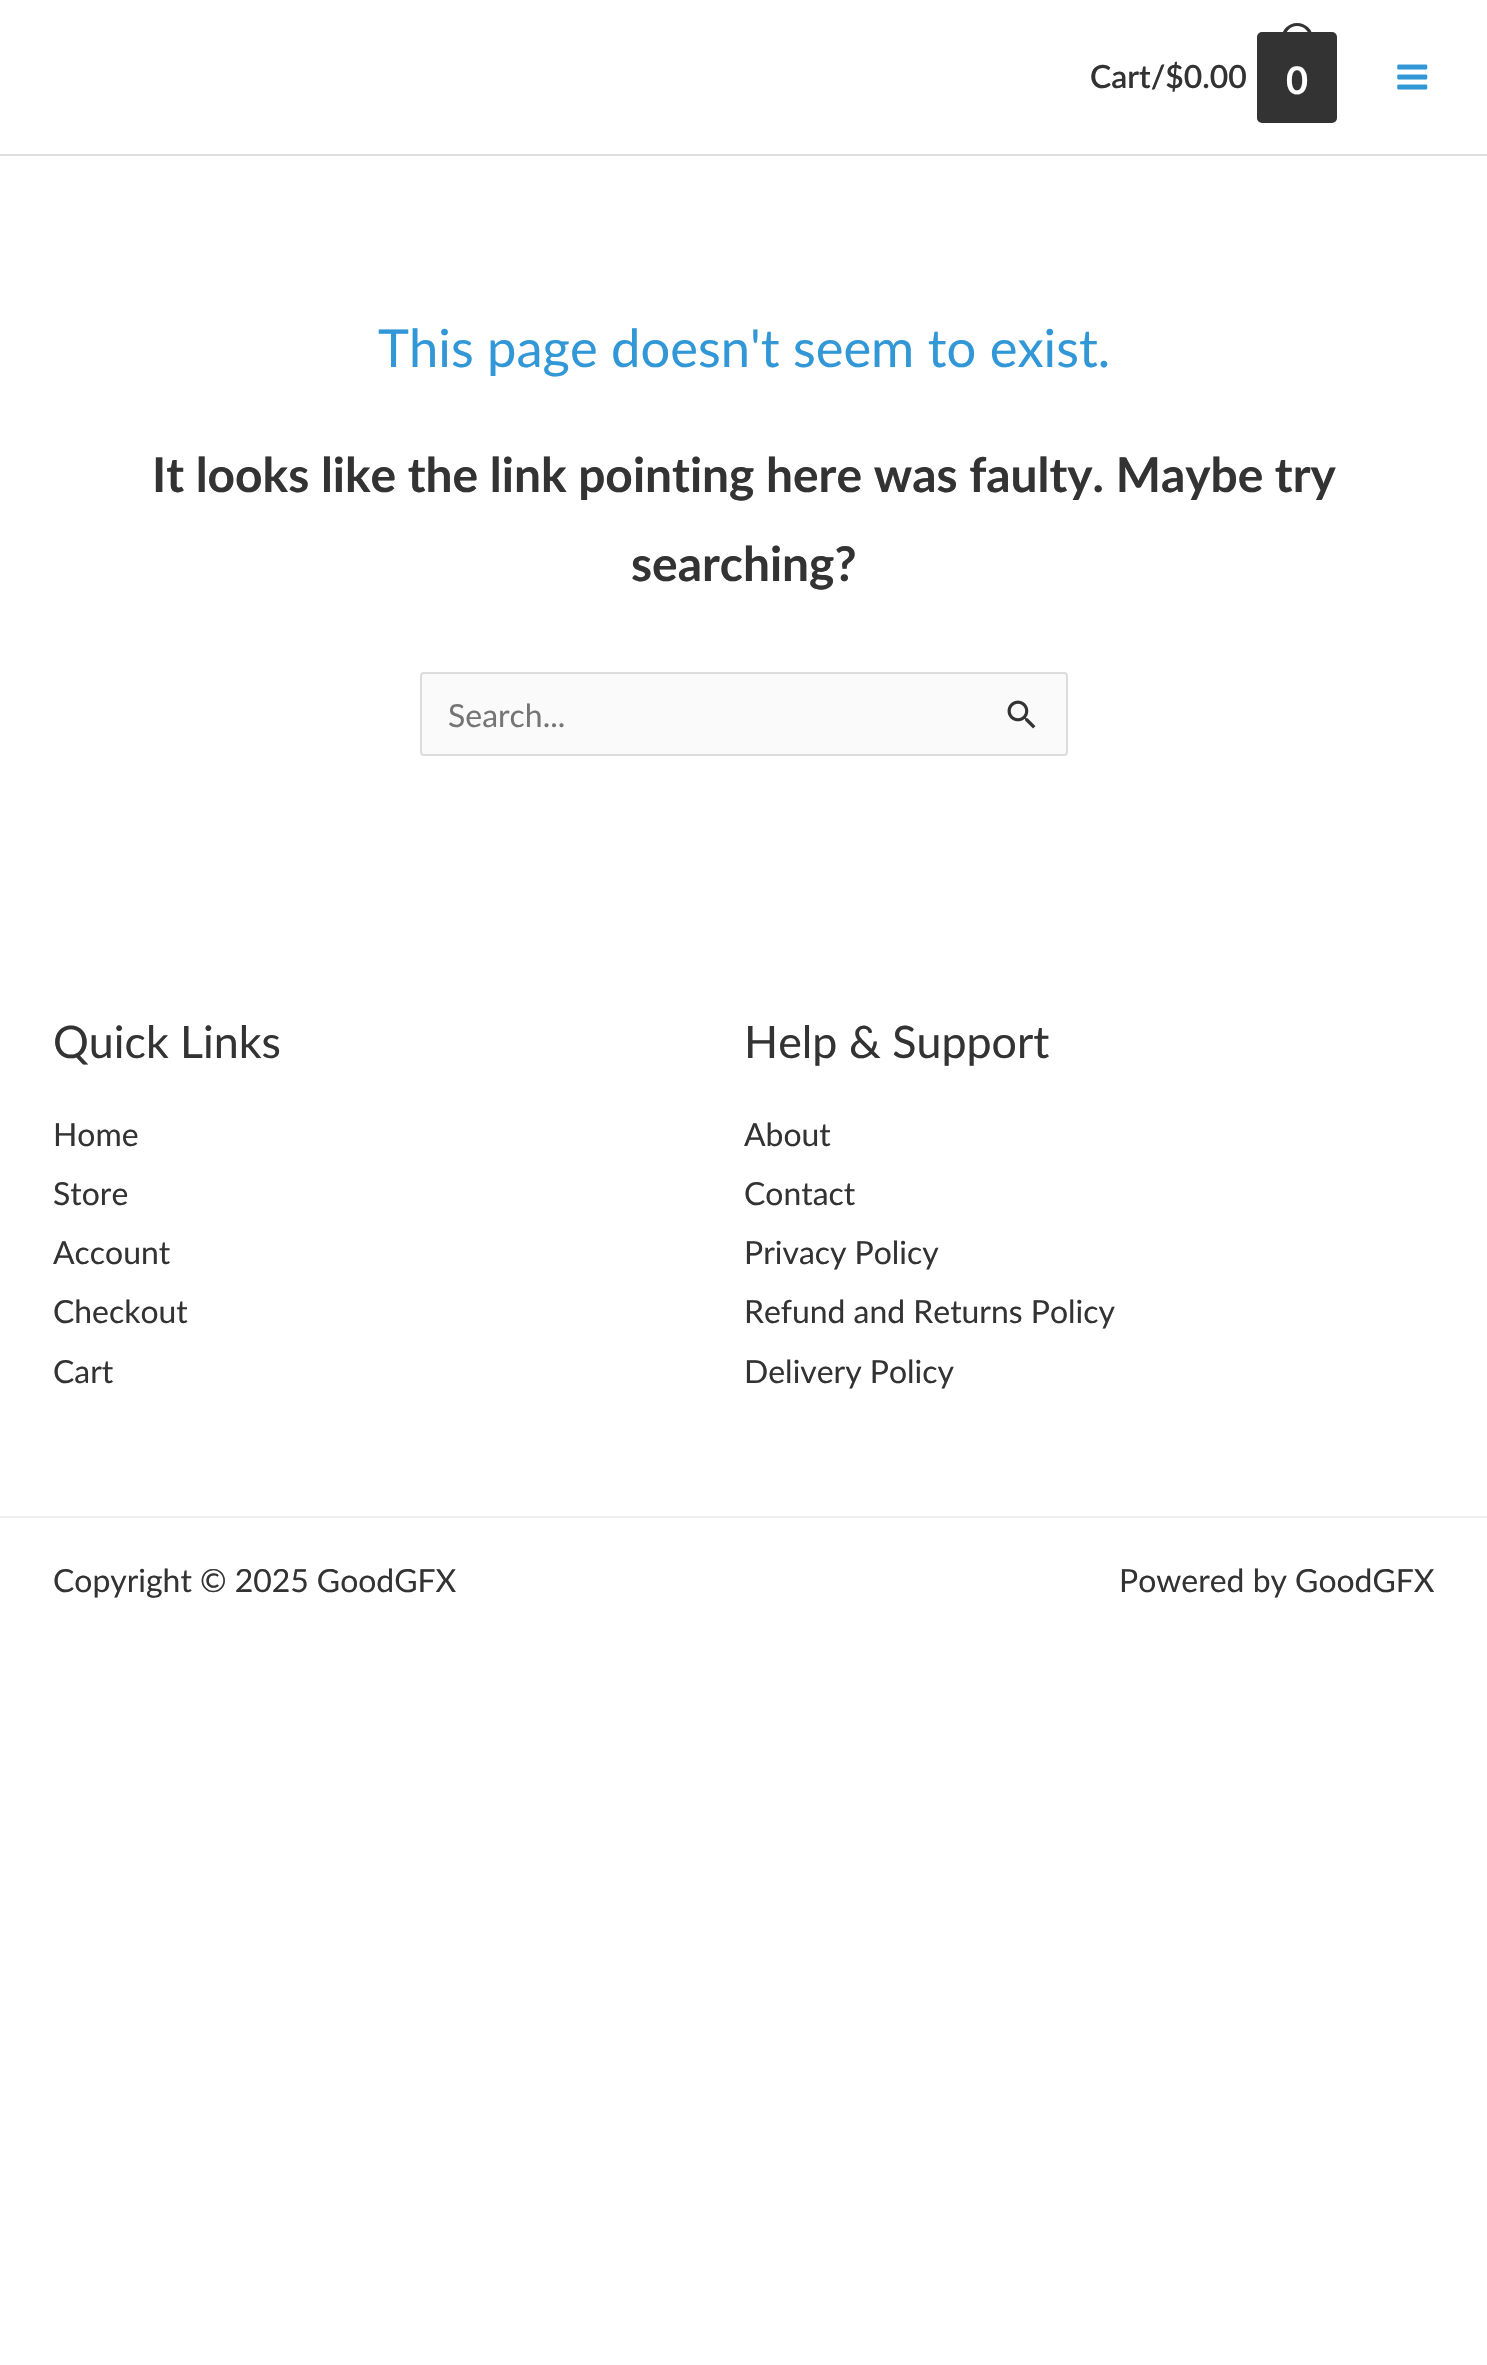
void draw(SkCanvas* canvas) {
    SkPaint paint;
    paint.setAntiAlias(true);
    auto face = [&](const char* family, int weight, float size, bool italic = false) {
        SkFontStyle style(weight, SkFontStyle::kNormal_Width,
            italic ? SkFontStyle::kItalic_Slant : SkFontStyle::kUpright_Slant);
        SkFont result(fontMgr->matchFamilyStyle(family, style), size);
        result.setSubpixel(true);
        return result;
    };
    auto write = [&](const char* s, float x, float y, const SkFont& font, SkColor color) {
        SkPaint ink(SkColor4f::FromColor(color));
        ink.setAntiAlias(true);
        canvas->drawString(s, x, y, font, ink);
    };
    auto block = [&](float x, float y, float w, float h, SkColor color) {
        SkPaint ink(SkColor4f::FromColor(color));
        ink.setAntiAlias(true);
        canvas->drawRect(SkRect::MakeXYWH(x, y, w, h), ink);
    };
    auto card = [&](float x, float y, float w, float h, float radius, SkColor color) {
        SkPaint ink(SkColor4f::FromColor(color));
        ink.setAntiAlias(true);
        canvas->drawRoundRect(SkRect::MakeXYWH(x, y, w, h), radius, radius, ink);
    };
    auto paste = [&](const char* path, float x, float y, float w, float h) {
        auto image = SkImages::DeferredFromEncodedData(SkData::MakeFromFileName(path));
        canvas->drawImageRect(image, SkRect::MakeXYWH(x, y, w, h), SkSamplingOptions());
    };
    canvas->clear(SK_ColorWHITE);
    block(0, 154, 1487, 2, SkColorSetRGB(221, 221, 221));
    auto kFont1 = face("Lato", 600, 31.9f);
    write("Cart/$0.00", 1090, 88, kFont1, SkColorSetRGB(51, 51, 51));
    card(1257, 32, 80, 89, 5, SkColorSetRGB(51, 51, 51));
    paint.setColor(SkColorSetRGB(51, 51, 51));
    canvas->drawRoundRect(SkRect::MakeXYWH(1259, 44, 76, 77), 3, 3, paint);
    paint.setStyle(SkPaint::kStroke_Style);
    paint.setStrokeWidth(4);
    canvas->drawRoundRect(SkRect::MakeXYWH(1259, 44, 76, 77), 3, 3, paint);
    paint.setStyle(SkPaint::kFill_Style);
    canvas->drawPath(SkPathBuilder(SkPathFillType::kEvenOdd).moveTo(1297, 23).cubicTo(1306, 23, 1313, 30, 1313, 38.5f).lineTo(1313, 52.5f).lineTo(1281.5f, 52.5f).lineTo(1281.5f, 38.5f).cubicTo(1281.5f, 30, 1288.5f, 23, 1297, 23).close().moveTo(1297, 26).cubicTo(1304, 26, 1309.5f, 31.5f, 1309.5f, 38.5f).lineTo(1309.5f, 52.5f).lineTo(1285, 52.5f).lineTo(1285, 38.5f).cubicTo(1285, 31.5f, 1290.5f, 26, 1297, 26).close().detach(), paint);
    auto kFont2 = face("Lato", 700, 38);
    write("0", 1286, 94, kFont2, SK_ColorWHITE);
    paste("pic1.png", 1397, 64, 31, 26);
    auto kFont3 = face("Lato", 400, 52.5f);
    write("This page doesn't seem to exist.", 378, 367, kFont3, SkColorSetRGB(49, 151, 214));
    auto kFont4 = face("Lato", 700, 47.9f);
    write("It looks like the link pointing here was faulty. Maybe try", 152, 492, kFont4, SkColorSetRGB(51, 51, 51));
    write("searching?", 631, 581, kFont4, SkColorSetRGB(51, 51, 51));
    paint.setColor(SkColorSetRGB(250, 250, 250));
    canvas->drawRoundRect(SkRect::MakeXYWH(421, 673, 646, 82), 3, 3, paint);
    paint.setStyle(SkPaint::kStroke_Style);
    paint.setStrokeWidth(2);
    paint.setColor(SkColorSetRGB(221, 221, 221));
    canvas->drawRoundRect(SkRect::MakeXYWH(421, 673, 646, 82), 3, 3, paint);
    auto kFont5 = face("Lato", 400, 31.9f);
    write("Search...", 448, 727, kFont5, SkColorSetRGB(117, 117, 117));
    paste("pic2.png", 1007, 700, 29, 29);
    auto kFont6 = face("Lato", 400, 44.75f);
    write("Quick Links", 53, 1058, kFont6, SkColorSetRGB(51, 51, 51));
    write("Home", 53, 1146, kFont5, SkColorSetRGB(51, 51, 51));
    write("Store", 53, 1205, kFont5, SkColorSetRGB(51, 51, 51));
    write("Account", 53, 1264, kFont5, SkColorSetRGB(51, 51, 51));
    write("Checkout", 53, 1323, kFont5, SkColorSetRGB(51, 51, 51));
    write("Cart", 53, 1383, kFont5, SkColorSetRGB(51, 51, 51));
    write("Help & Support", 744, 1058, kFont6, SkColorSetRGB(51, 51, 51));
    write("About", 744, 1146, kFont5, SkColorSetRGB(51, 51, 51));
    write("Contact", 744, 1205, kFont5, SkColorSetRGB(51, 51, 51));
    write("Privacy Policy", 744, 1264, kFont5, SkColorSetRGB(51, 51, 51));
    write("Refund and Returns Policy", 744, 1323, kFont5, SkColorSetRGB(51, 51, 51));
    write("Delivery Policy", 744, 1383, kFont5, SkColorSetRGB(51, 51, 51));
    block(0, 1516, 1487, 2, SkColorSetRGB(238, 238, 238));
    write("Copyright © 2025 GoodGFX", 53, 1592, kFont5, SkColorSetRGB(51, 51, 51));
    write("Powered by GoodGFX", 1119, 1592, kFont5, SkColorSetRGB(51, 51, 51));
}
